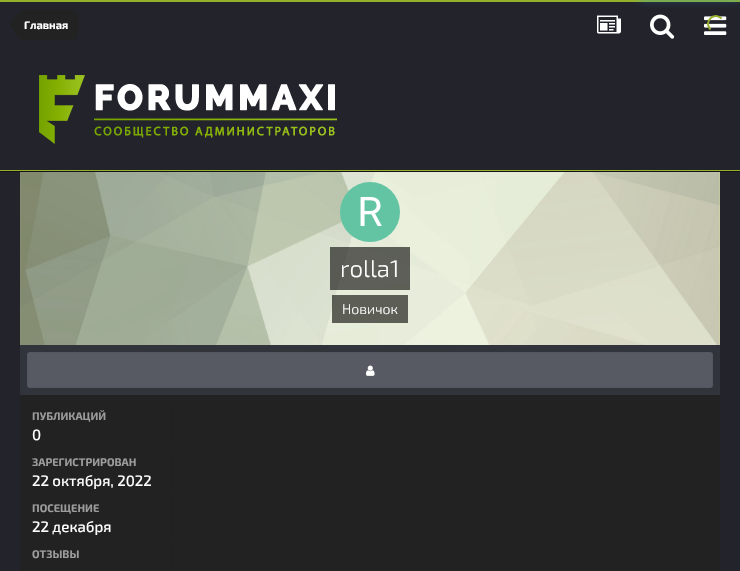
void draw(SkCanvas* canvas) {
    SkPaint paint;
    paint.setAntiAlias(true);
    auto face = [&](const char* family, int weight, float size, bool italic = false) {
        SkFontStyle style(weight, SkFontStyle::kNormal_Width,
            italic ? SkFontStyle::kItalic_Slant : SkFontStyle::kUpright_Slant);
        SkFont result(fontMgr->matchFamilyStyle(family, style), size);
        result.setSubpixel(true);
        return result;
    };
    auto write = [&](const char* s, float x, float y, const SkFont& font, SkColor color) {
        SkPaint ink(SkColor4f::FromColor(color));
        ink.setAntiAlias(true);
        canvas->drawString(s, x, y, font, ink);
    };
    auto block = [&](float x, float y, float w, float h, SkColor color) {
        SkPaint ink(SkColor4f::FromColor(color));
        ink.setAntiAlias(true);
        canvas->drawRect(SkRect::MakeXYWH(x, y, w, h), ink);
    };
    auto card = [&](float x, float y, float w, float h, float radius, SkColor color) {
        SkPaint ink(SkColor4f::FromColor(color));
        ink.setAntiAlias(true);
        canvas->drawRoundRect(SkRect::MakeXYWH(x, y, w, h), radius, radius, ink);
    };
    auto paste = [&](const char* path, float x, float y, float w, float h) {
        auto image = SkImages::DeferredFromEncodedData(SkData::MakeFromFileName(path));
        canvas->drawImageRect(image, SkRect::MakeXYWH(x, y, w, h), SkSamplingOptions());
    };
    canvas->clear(SkColorSetRGB(18, 19, 24));
    block(0, 0, 740, 2, SkColorSetRGB(149, 177, 43));
    block(0, 2, 740, 168, SkColorSetRGB(34, 35, 43));
    paint.setColor(SkColorSetRGB(34, 153, 221));
    paint.setMaskFilter(SkMaskFilter::MakeBlur(kNormal_SkBlurStyle, 2.5f));
    canvas->drawRect(SkRect::MakeXYWH(640, -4, 100, 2), paint);
    paint.setMaskFilter(nullptr);
    paint.setMaskFilter(SkMaskFilter::MakeBlur(kNormal_SkBlurStyle, 5));
    canvas->drawRect(SkRect::MakeXYWH(640, -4, 100, 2), paint);
    paint.setMaskFilter(nullptr);
    paste("pic4.png", 704, 16, 23, 19);
    paint.setStyle(SkPaint::kStroke_Style);
    paint.setStrokeWidth(2);
    paint.setColor(SkColorSetRGB(149, 177, 43));
    canvas->drawPath(SkPathBuilder().moveTo(710.5f, 29.5f).cubicTo(703, 22, 714, 11, 721.5f, 18.5f).detach(), paint);
    paste("pic1.png", 39, 75, 298, 69);
    paint.setStyle(SkPaint::kFill_Style);
    paint.setColor(SkColorSetRGB(34, 34, 34));
    canvas->drawPath(SkPathBuilder().moveTo(24, 10).lineTo(72, 10).cubicTo(75.5f, 10, 78, 12.5f, 78, 16).lineTo(78, 34).cubicTo(78, 37.5f, 75.5f, 40, 72, 40).lineTo(24, 40).close().detach(), paint);
    canvas->drawPath(SkPathBuilder().moveTo(24, 25).lineTo(24, 40).cubicTo(22, 40, 19.5f, 38.5f, 17, 35.5f).lineTo(10, 25).close().moveTo(24, 25).lineTo(10, 25).cubicTo(10, 24, 18.5f, 12.5f, 19, 12).cubicTo(20.5f, 11, 22, 10, 24, 10).close().detach(), paint);
    auto kFont1 = face("Exo 2", 700, 11);
    write("Главная", 24, 29, kFont1, SK_ColorWHITE);
    paste("pic2.png", 597, 15, 24, 19);
    paste("pic3.png", 650, 14, 25, 25);
    block(0, 170, 740, 1, SkColorSetRGB(149, 177, 43));
    block(0, 172, 740, 399, SkColorSetRGB(34, 35, 43));
    block(20, 172, 700, 173, SkColorSetRGB(226, 255, 153));
    paste("pic5.png", 20, 172, 700, 173);
    paste("pic6.png", 340, 182, 60, 60);
    block(330, 247, 80, 43, SkColorSetARGB(153, 0, 0, 0));
    auto kFont2 = face("Exo 2", 300, 24);
    write("rolla1", 340, 277, kFont2, SK_ColorWHITE);
    block(332, 295, 76, 28, SkColorSetARGB(153, 0, 0, 0));
    auto kFont3 = face("Exo 2", 300, 14);
    write("Новичок", 342, 314, kFont3, SK_ColorWHITE);
    block(20, 345, 700, 50, SkColorSetRGB(50, 52, 59));
    card(27, 352, 686, 36, 3, SkColorSetRGB(88, 90, 99));
    paint.setStyle(SkPaint::kStroke_Style);
    paint.setStrokeWidth(1);
    paint.setColor(SkColorSetARGB(8, 0, 0, 0));
    canvas->drawRect(SkRect::MakeXYWH(27.5f, 352.5f, 685, 35), paint);
    paste("pic7.png", 366, 365, 9, 11);
    block(20, 395, 700, 176, SkColorSetRGB(34, 34, 34));
    block(172, 407, 1, 36, SkColorSetRGB(31, 31, 31));
    write("ПУБЛИКАЦИЙ", 32, 420, kFont1, SkColorSetRGB(156, 156, 156));
    auto kFont4 = face("Exo 2", 500, 15);
    write("0", 32, 440, kFont4, SK_ColorWHITE);
    block(172, 453, 1, 36, SkColorSetRGB(31, 31, 31));
    write("ЗАРЕГИСТРИРОВАН", 32, 466, kFont1, SkColorSetRGB(156, 156, 156));
    write("22 октября, 2022", 32, 486, kFont4, SK_ColorWHITE);
    block(172, 499, 1, 36, SkColorSetRGB(31, 31, 31));
    write("ПОСЕЩЕНИЕ", 32, 512, kFont1, SkColorSetRGB(156, 156, 156));
    write("22 декабря", 32, 532, kFont4, SK_ColorWHITE);
    block(172, 545, 1, 26, SkColorSetRGB(31, 31, 31));
    write("ОТЗЫВЫ", 32, 558, kFont1, SkColorSetRGB(156, 156, 156));
}
